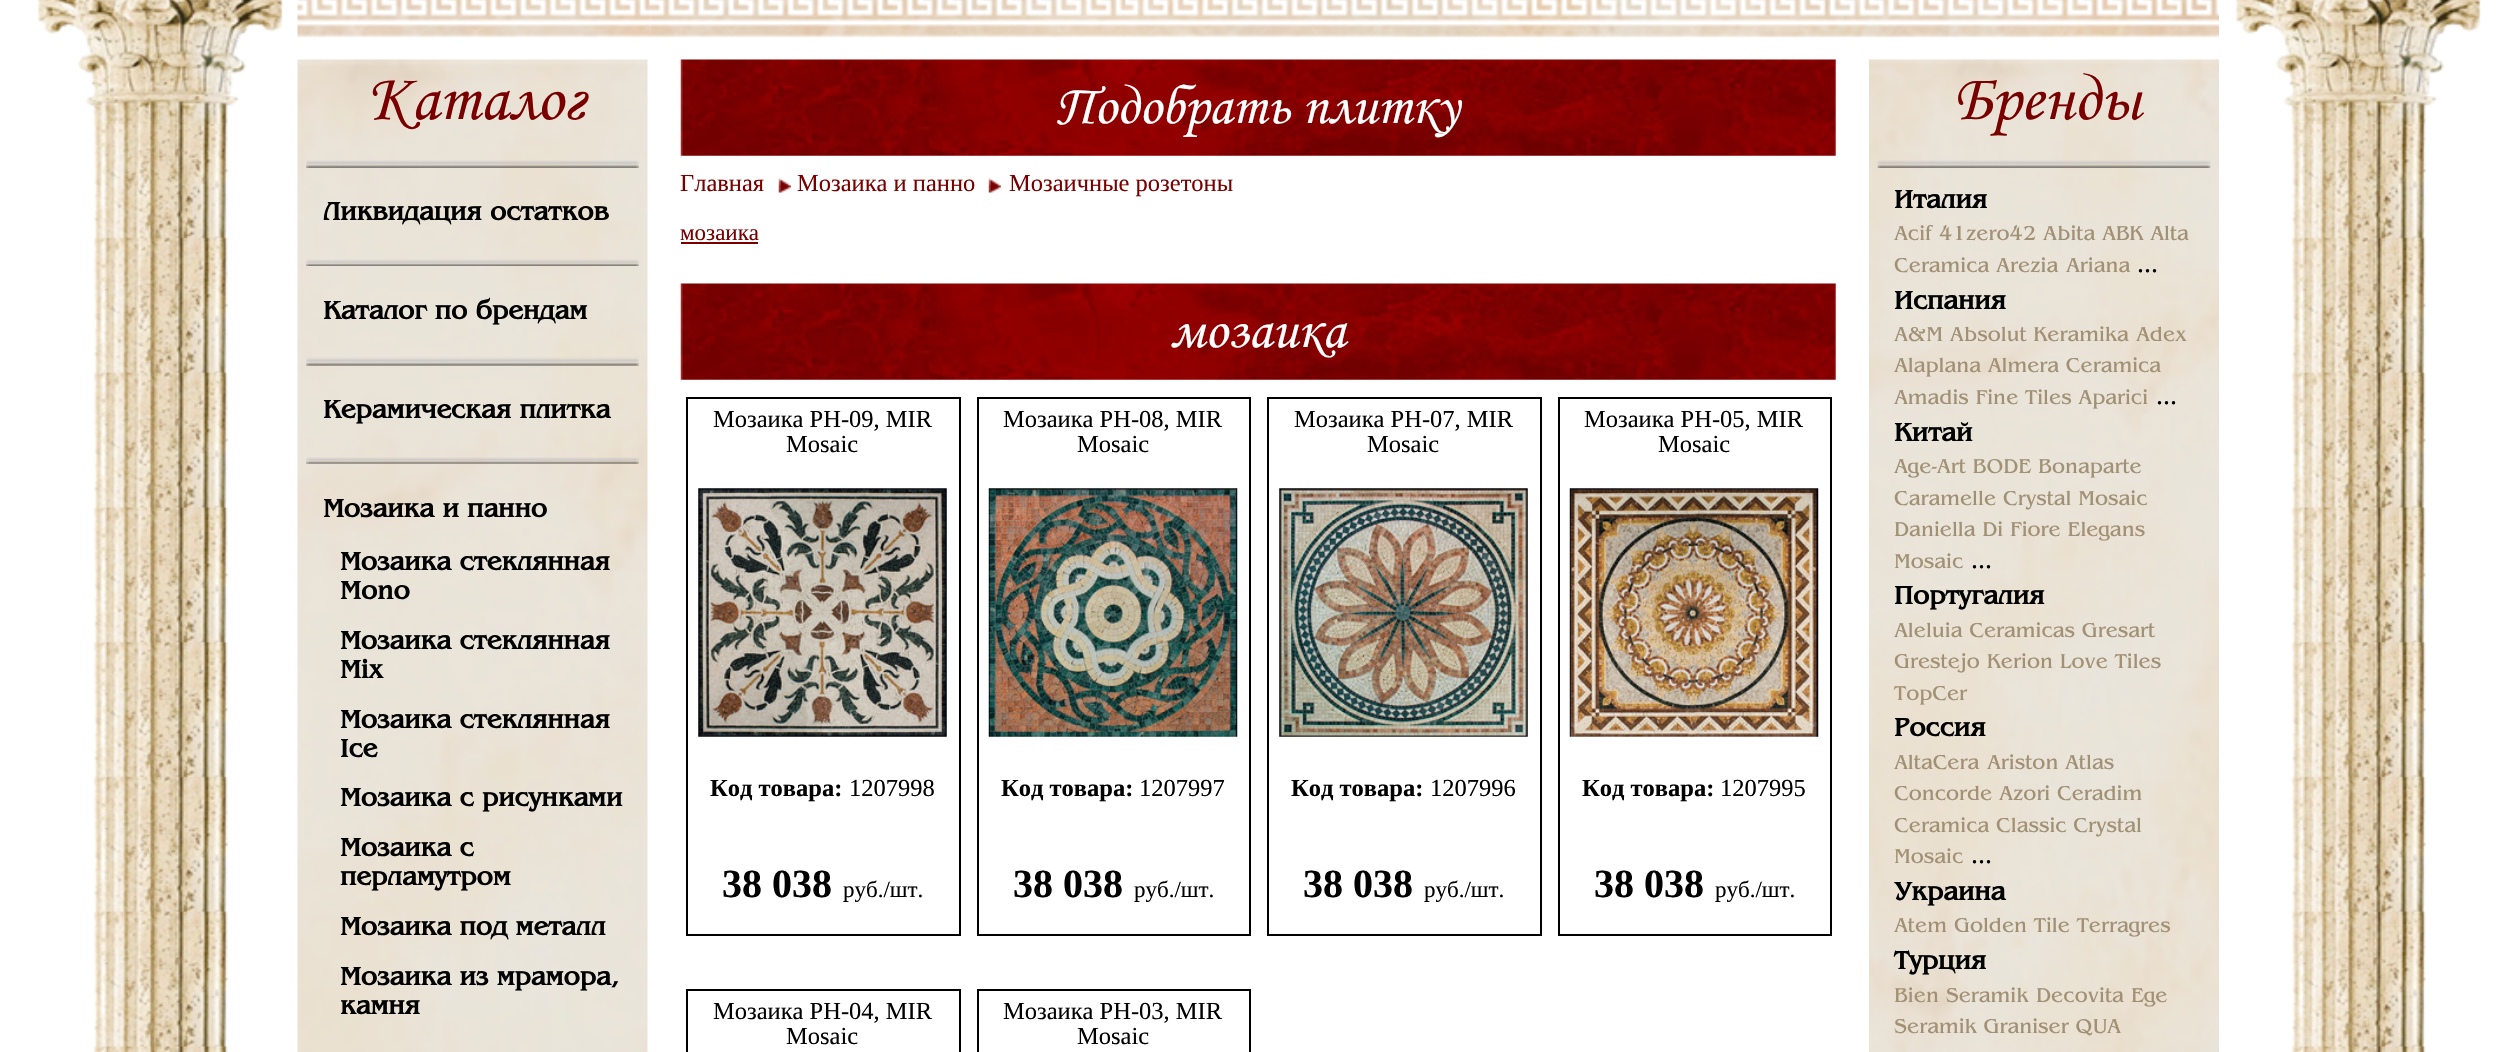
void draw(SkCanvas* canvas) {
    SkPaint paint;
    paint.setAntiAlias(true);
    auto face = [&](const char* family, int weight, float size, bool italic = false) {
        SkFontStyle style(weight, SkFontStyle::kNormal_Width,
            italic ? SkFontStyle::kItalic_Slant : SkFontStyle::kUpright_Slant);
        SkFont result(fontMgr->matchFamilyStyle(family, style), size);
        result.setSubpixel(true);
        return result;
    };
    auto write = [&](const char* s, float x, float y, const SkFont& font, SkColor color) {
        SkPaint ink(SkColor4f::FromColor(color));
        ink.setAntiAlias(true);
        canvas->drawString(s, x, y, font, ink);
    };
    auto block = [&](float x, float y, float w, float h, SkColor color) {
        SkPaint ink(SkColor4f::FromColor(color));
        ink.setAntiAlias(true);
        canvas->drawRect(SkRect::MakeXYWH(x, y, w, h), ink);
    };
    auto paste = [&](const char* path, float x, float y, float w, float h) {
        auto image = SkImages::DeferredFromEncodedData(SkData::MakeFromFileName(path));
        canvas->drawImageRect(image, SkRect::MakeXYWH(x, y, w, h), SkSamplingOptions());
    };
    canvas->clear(SK_ColorWHITE);
    paste("pic1.png", 93, 124, 2333, 928);
    paste("pic2.png", 38, 0, 2443, 125);
    paste("pic3.png", 297, 0, 1922, 38);
    paste("pic4.png", 297, 59, 351, 993);
    auto kFont1 = face("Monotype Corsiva", 400, 66.5f, true);
    write("Каталог", 367, 119, kFont1, SkColorSetRGB(122, 0, 0));
    paste("pic5.png", 306, 160, 333, 8);
    auto kFont2 = face("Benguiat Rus", 700, 26.25f);
    write("Ликвидация остатков", 323, 220, kFont2, SkColorSetRGB(1, 1, 1));
    paste("pic6.png", 306, 259, 333, 7);
    write("Каталог по брендам", 323, 319, kFont2, SkColorSetRGB(1, 1, 1));
    paste("pic7.png", 306, 357, 333, 9);
    write("Керамическая плитка", 323, 418, kFont2, SkColorSetRGB(1, 1, 1));
    paste("pic8.png", 306, 457, 333, 7);
    write("Мозаика и панно", 323, 517, kFont2, SkColorSetRGB(1, 1, 1));
    write("Мозаика стеклянная", 340, 570, kFont2, SkColorSetRGB(1, 1, 1));
    write("Mono", 340, 599, kFont2, SkColorSetRGB(1, 1, 1));
    write("Мозаика стеклянная", 340, 649, kFont2, SkColorSetRGB(1, 1, 1));
    write("Mix", 340, 678, kFont2, SkColorSetRGB(1, 1, 1));
    write("Мозаика стеклянная", 340, 728, kFont2, SkColorSetRGB(1, 1, 1));
    write("Ice", 340, 757, kFont2, SkColorSetRGB(1, 1, 1));
    write("Мозаика с рисунками", 340, 806, kFont2, SkColorSetRGB(1, 1, 1));
    write("Мозаика с", 340, 856, kFont2, SkColorSetRGB(1, 1, 1));
    write("перламутром", 340, 885, kFont2, SkColorSetRGB(1, 1, 1));
    write("Мозаика под металл", 340, 935, kFont2, SkColorSetRGB(1, 1, 1));
    write("Мозаика из мрамора,", 340, 985, kFont2, SkColorSetRGB(1, 1, 1));
    write("камня", 340, 1014, kFont2, SkColorSetRGB(1, 1, 1));
    paste("pic9.png", 680, 59, 1156, 97);
    auto kFont3 = face("Monotype Corsiva", 400, 56, true);
    write("Подобрать плитку", 1056, 123, kFont3, SK_ColorWHITE);
    paste("pic10.png", 778, 178, 13, 15);
    auto kFont4 = face("Liberation Serif", 400, 24.5f);
    write("Главная", 680, 191, kFont4, SkColorSetRGB(122, 0, 0));
    paste("pic10.png", 988, 178, 13, 15);
    write("Мозаика и панно", 797, 191, kFont4, SkColorSetRGB(122, 0, 0));
    write("Мозаичные розетоны", 1009, 191, kFont4, SkColorSetRGB(122, 0, 0));
    auto kFont5 = face("Liberation Serif", 400, 23);
    write("мозаика", 680, 240, kFont5, SkColorSetRGB(122, 0, 0));
    block(681, 242, 77, 2, SkColorSetRGB(122, 0, 0));
    paste("pic9.png", 680, 283, 1156, 97);
    write("мозаика", 1170, 347, kFont3, SK_ColorWHITE);
    paint.setStyle(SkPaint::kStroke_Style);
    paint.setStrokeWidth(2);
    paint.setColor(SK_ColorBLACK);
    canvas->drawRect(SkRect::MakeXYWH(687, 398, 273, 537), paint);
    write("Мозаика PH-09, MIR", 713, 427, kFont4, SkColorSetRGB(1, 1, 1));
    write("Mosaic", 786, 452, kFont4, SkColorSetRGB(1, 1, 1));
    paste("pic11.png", 698, 488, 249, 249);
    auto kFont6 = face("Liberation Serif", 700, 24.5f);
    write("Код товара:", 710, 796, kFont6, SkColorSetRGB(1, 1, 1));
    write("1207998", 849, 796, kFont4, SkColorSetRGB(1, 1, 1));
    auto kFont7 = face("Liberation Serif", 700, 40);
    write("38 038", 722, 897, kFont7, SkColorSetRGB(1, 1, 1));
    write("руб./шт.", 843, 897, kFont5, SkColorSetRGB(1, 1, 1));
    canvas->drawRect(SkRect::MakeXYWH(978, 398, 272, 537), paint);
    write("Мозаика PH-08, MIR", 1003, 427, kFont4, SkColorSetRGB(1, 1, 1));
    write("Mosaic", 1077, 452, kFont4, SkColorSetRGB(1, 1, 1));
    paste("pic12.png", 988, 488, 250, 249);
    write("Код товара:", 1001, 796, kFont6, SkColorSetRGB(1, 1, 1));
    write("1207997", 1139, 796, kFont4, SkColorSetRGB(1, 1, 1));
    write("38 038", 1013, 897, kFont7, SkColorSetRGB(1, 1, 1));
    write("руб./шт.", 1134, 897, kFont5, SkColorSetRGB(1, 1, 1));
    canvas->drawRect(SkRect::MakeXYWH(1268, 398, 273, 537), paint);
    write("Мозаика PH-07, MIR", 1294, 427, kFont4, SkColorSetRGB(1, 1, 1));
    write("Mosaic", 1367, 452, kFont4, SkColorSetRGB(1, 1, 1));
    paste("pic13.png", 1279, 488, 249, 249);
    write("Код товара:", 1291, 796, kFont6, SkColorSetRGB(1, 1, 1));
    write("1207996", 1430, 796, kFont4, SkColorSetRGB(1, 1, 1));
    write("38 038", 1303, 897, kFont7, SkColorSetRGB(1, 1, 1));
    write("руб./шт.", 1424, 897, kFont5, SkColorSetRGB(1, 1, 1));
    canvas->drawRect(SkRect::MakeXYWH(1559, 398, 272, 537), paint);
    write("Мозаика PH-05, MIR", 1584, 427, kFont4, SkColorSetRGB(1, 1, 1));
    write("Mosaic", 1658, 452, kFont4, SkColorSetRGB(1, 1, 1));
    paste("pic14.png", 1569, 488, 250, 249);
    write("Код товара:", 1582, 796, kFont6, SkColorSetRGB(1, 1, 1));
    write("1207995", 1720, 796, kFont4, SkColorSetRGB(1, 1, 1));
    write("38 038", 1594, 897, kFont7, SkColorSetRGB(1, 1, 1));
    write("руб./шт.", 1715, 897, kFont5, SkColorSetRGB(1, 1, 1));
    canvas->drawRect(SkRect::MakeXYWH(687, 990, 273, 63), paint);
    write("Мозаика PH-04, MIR", 713, 1019, kFont4, SkColorSetRGB(1, 1, 1));
    write("Mosaic", 786, 1044, kFont4, SkColorSetRGB(1, 1, 1));
    canvas->drawRect(SkRect::MakeXYWH(978, 990, 272, 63), paint);
    write("Мозаика PH-03, MIR", 1003, 1019, kFont4, SkColorSetRGB(1, 1, 1));
    write("Mosaic", 1077, 1044, kFont4, SkColorSetRGB(1, 1, 1));
    paste("pic15.png", 1869, 59, 350, 993);
    write("Бренды", 1955, 119, kFont1, SkColorSetRGB(122, 0, 0));
    paste("pic16.png", 1877, 160, 334, 8);
    write("Италия", 1894, 208, kFont2, SkColorSetRGB(1, 1, 1));
    auto kFont8 = face("Benguiat Rus", 400, 21);
    write("Acif 41zero42 Abita ABK Alta", 1894, 240, kFont8, SkColorSetRGB(161, 144, 116));
    write("Ceramica Arezia", 1894, 272, kFont8, SkColorSetRGB(161, 144, 116));
    write("Ariana", 2066, 272, kFont8, SkColorSetRGB(161, 144, 116));
    auto kFont9 = face("Liberation Serif", 400, 28);
    write("...", 2137, 272, kFont9, SkColorSetRGB(1, 1, 1));
    write("Испания", 1894, 309, kFont2, SkColorSetRGB(1, 1, 1));
    write("A&M Absolut Keramika", 1894, 341, kFont8, SkColorSetRGB(161, 144, 116));
    write("Adex", 2136, 341, kFont8, SkColorSetRGB(161, 144, 116));
    write("Alaplana Almera Ceramica", 1894, 372, kFont8, SkColorSetRGB(161, 144, 116));
    write("Amadis Fine Tiles Aparici", 1894, 404, kFont8, SkColorSetRGB(161, 144, 116));
    write("...", 2156, 404, kFont9, SkColorSetRGB(1, 1, 1));
    write("Китай", 1894, 441, kFont2, SkColorSetRGB(1, 1, 1));
    write("Age-Art BODE Bonaparte", 1894, 473, kFont8, SkColorSetRGB(161, 144, 116));
    write("Caramelle", 1894, 505, kFont8, SkColorSetRGB(161, 144, 116));
    write("Crystal Mosaic", 2003, 505, kFont8, SkColorSetRGB(161, 144, 116));
    write("Daniella Di Fiore Elegans", 1894, 536, kFont8, SkColorSetRGB(161, 144, 116));
    write("Mosaic", 1894, 568, kFont8, SkColorSetRGB(161, 144, 116));
    write("...", 1971, 568, kFont9, SkColorSetRGB(1, 1, 1));
    write("Португалия", 1894, 604, kFont2, SkColorSetRGB(1, 1, 1));
    write("Aleluia Ceramicas Gresart", 1894, 637, kFont8, SkColorSetRGB(161, 144, 116));
    write("Grestejo", 1894, 668, kFont8, SkColorSetRGB(161, 144, 116));
    write("Kerion Love Tiles", 1987, 668, kFont8, SkColorSetRGB(161, 144, 116));
    write("TopCer", 1894, 700, kFont8, SkColorSetRGB(161, 144, 116));
    write("Россия", 1894, 736, kFont2, SkColorSetRGB(1, 1, 1));
    write("AltaCera", 1894, 769, kFont8, SkColorSetRGB(161, 144, 116));
    write("Ariston", 1987, 769, kFont8, SkColorSetRGB(161, 144, 116));
    write("Atlas", 2065, 769, kFont8, SkColorSetRGB(161, 144, 116));
    write("Concorde Azori Ceradim", 1894, 800, kFont8, SkColorSetRGB(161, 144, 116));
    write("Ceramica Classic Crystal", 1894, 832, kFont8, SkColorSetRGB(161, 144, 116));
    write("Mosaic", 1894, 863, kFont8, SkColorSetRGB(161, 144, 116));
    write("...", 1971, 863, kFont9, SkColorSetRGB(1, 1, 1));
    write("Украина", 1894, 900, kFont2, SkColorSetRGB(1, 1, 1));
    write("Atem", 1894, 932, kFont8, SkColorSetRGB(161, 144, 116));
    write("Golden Tile Terragres", 1954, 932, kFont8, SkColorSetRGB(161, 144, 116));
    write("Турция", 1894, 969, kFont2, SkColorSetRGB(1, 1, 1));
    write("Bien Seramik", 1894, 1002, kFont8, SkColorSetRGB(161, 144, 116));
    write("Decovita", 2036, 1002, kFont8, SkColorSetRGB(161, 144, 116));
    write("Ege", 2131, 1002, kFont8, SkColorSetRGB(161, 144, 116));
    write("Seramik Graniser QUA", 1894, 1033, kFont8, SkColorSetRGB(161, 144, 116));
}
